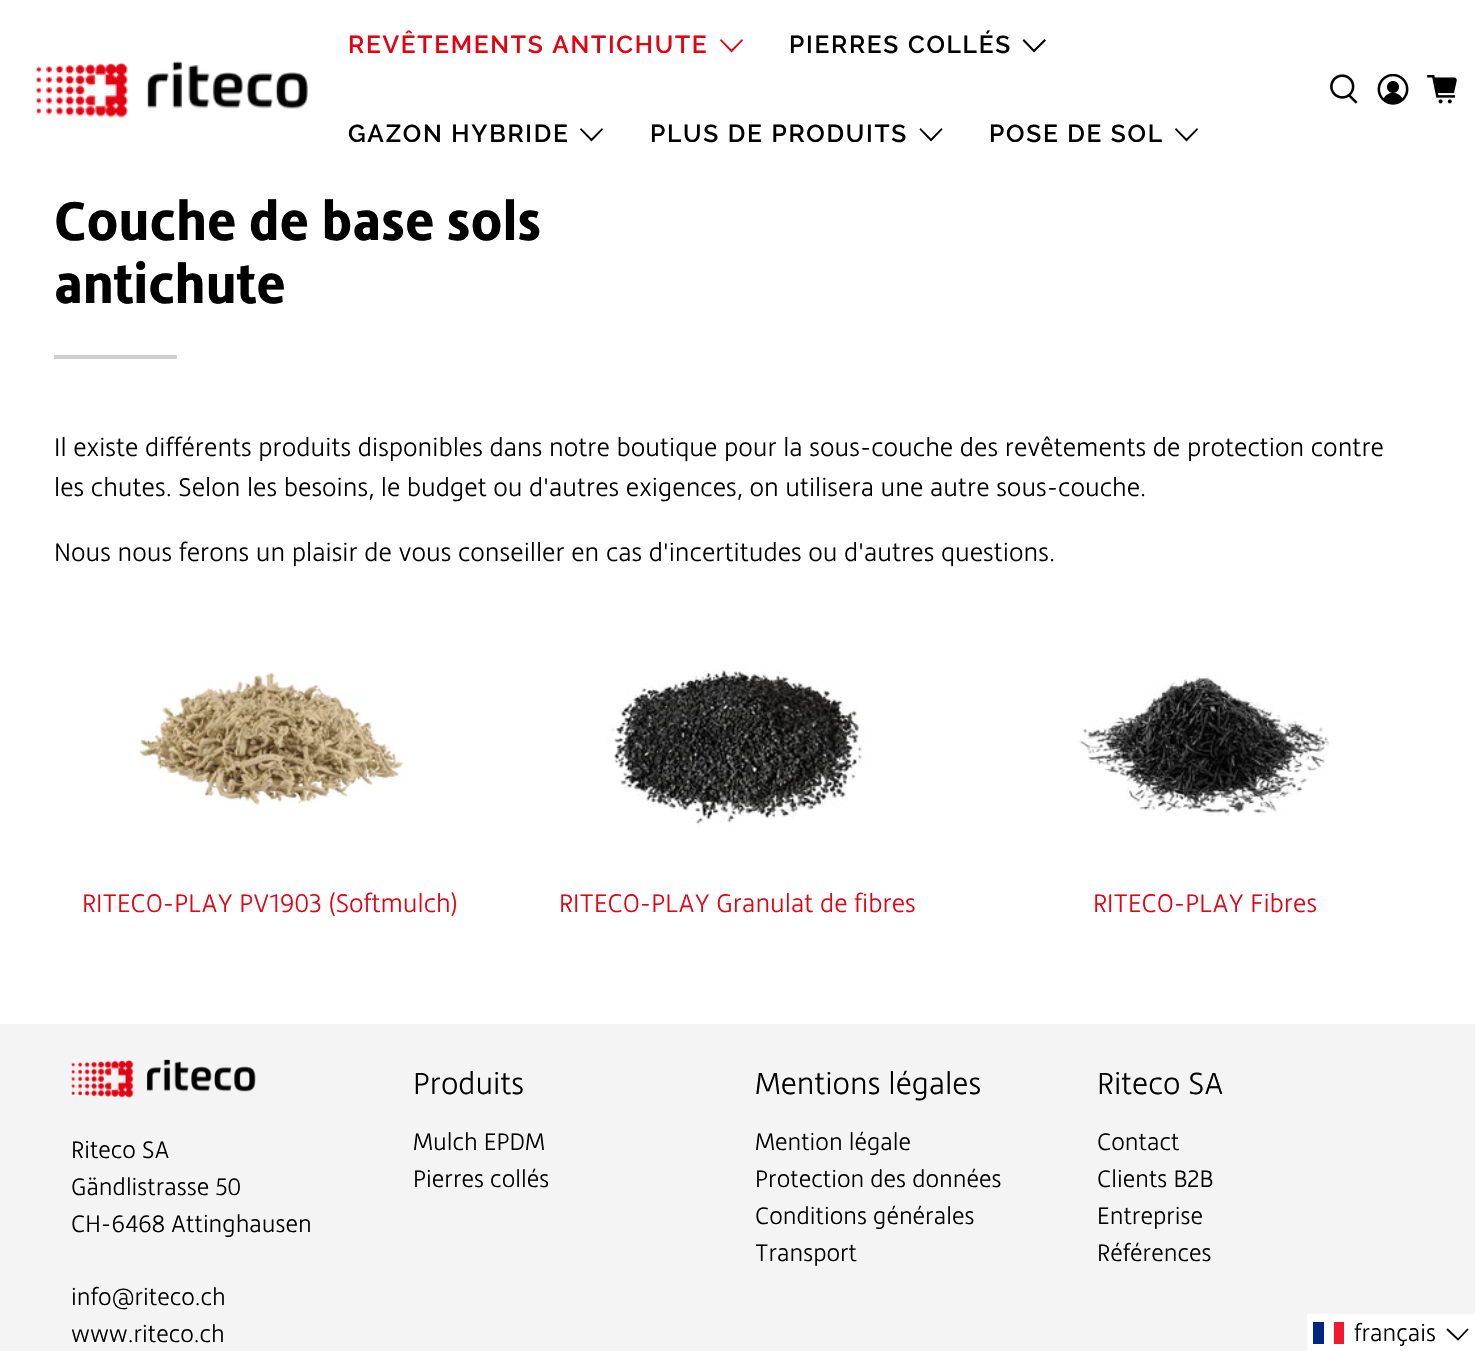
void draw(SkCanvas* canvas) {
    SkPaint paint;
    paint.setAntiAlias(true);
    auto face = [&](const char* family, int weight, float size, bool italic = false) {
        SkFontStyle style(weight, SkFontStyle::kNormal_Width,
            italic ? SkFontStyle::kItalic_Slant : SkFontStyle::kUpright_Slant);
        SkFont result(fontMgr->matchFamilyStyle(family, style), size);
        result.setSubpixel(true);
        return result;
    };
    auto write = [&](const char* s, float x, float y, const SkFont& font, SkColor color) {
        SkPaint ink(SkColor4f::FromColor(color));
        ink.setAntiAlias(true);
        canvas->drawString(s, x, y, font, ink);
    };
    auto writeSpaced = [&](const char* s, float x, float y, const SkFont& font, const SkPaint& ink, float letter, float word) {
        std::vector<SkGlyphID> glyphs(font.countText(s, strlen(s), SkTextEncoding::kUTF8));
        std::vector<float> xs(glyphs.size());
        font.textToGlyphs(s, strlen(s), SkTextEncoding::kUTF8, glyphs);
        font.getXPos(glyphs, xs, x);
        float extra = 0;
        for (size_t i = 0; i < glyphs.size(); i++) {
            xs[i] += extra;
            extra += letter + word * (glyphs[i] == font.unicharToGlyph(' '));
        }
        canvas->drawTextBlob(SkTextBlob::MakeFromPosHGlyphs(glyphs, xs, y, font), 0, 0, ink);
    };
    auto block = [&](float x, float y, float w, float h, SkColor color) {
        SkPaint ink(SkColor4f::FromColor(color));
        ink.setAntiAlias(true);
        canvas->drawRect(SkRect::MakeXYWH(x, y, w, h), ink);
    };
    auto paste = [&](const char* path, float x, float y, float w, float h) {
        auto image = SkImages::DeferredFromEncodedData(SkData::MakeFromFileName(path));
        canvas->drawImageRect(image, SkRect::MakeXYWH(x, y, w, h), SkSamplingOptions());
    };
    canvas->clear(SK_ColorWHITE);
    paste("pic1.png", 36, 61, 272, 57);
    auto kFont1 = face("Raleway", 600, 24.5f);
    paint.setColor(SkColorSetRGB(227, 1, 18));
    writeSpaced("REVÊTEMENTS ANTICHUTE", 348, 53, kFont1, paint, 1.75f, 0);
    canvas->drawPath(SkPathBuilder().moveTo(731.5f, 52.5f).lineTo(720, 40.5f).lineTo(721, 39).lineTo(731.5f, 49.5f).lineTo(742, 39).lineTo(743, 40.5f).close().detach(), paint);
    paint.setColor(SK_ColorBLACK);
    writeSpaced("PIERRES COLLÉS", 789, 53, kFont1, paint, 1.75f, 0);
    canvas->drawPath(SkPathBuilder().moveTo(1034, 52.5f).lineTo(1022.5f, 40.5f).lineTo(1024, 39).lineTo(1034, 49.5f).lineTo(1044.5f, 39).lineTo(1046, 40.5f).close().detach(), paint);
    writeSpaced("GAZON HYBRIDE", 348, 142, kFont1, paint, 1.75f, 0);
    canvas->drawPath(SkPathBuilder().moveTo(591.5f, 141.5f).lineTo(580, 129.5f).lineTo(581, 128).lineTo(591.5f, 138.5f).lineTo(602, 128).lineTo(603, 129.5f).close().detach(), paint);
    writeSpaced("PLUS DE PRODUITS", 650, 142, kFont1, paint, 1.75f, 0);
    canvas->drawPath(SkPathBuilder().moveTo(931, 141.5f).lineTo(919.5f, 129.5f).lineTo(920.5f, 128).lineTo(931, 138.5f).lineTo(941.5f, 128).lineTo(942.5f, 129.5f).close().detach(), paint);
    writeSpaced("POSE DE SOL", 989, 142, kFont1, paint, 1.75f, 0);
    canvas->drawPath(SkPathBuilder().moveTo(1186.5f, 141.5f).lineTo(1175, 129.5f).lineTo(1176, 128).lineTo(1186.5f, 138.5f).lineTo(1197, 128).lineTo(1198, 129.5f).close().detach(), paint);
    paste("pic2.png", 1330, 74, 28, 30);
    paste("pic3.png", 1377, 74, 32, 31);
    paste("pic4.png", 1427, 75, 30, 29);
    auto kFont2 = face("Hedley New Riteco", 700, 56);
    write("Couche de base sols", 54, 240, kFont2, SK_ColorBLACK);
    write("antichute", 54, 303, kFont2, SK_ColorBLACK);
    block(54, 355, 123, 4, SkColorSetRGB(207, 207, 207));
    auto kFont3 = face("Hedley New Riteco", 300, 26.25f);
    write("Il existe différents produits disponibles dans notre boutique pour la sous-couche des revêtements de protection contre", 54, 456, kFont3, SK_ColorBLACK);
    write("les chutes. Selon les besoins, le budget ou d'autres exigences, on utilisera une autre sous-couche.", 54, 496, kFont3, SK_ColorBLACK);
    write("Nous nous ferons un plaisir de vous conseiller en cas d'incertitudes ou d'autres questions.", 54, 561, kFont3, SK_ColorBLACK);
    paste("pic5.png", 140, 673, 263, 132);
    write("RITECO-PLAY PV1903 (Softmulch)", 82, 912, kFont3, SkColorSetRGB(227, 1, 18));
    paste("pic6.png", 607, 670, 261, 158);
    write("RITECO-PLAY Granulat de fibres", 559, 912, kFont3, SkColorSetRGB(227, 1, 18));
    paste("pic7.png", 1077, 672, 253, 144);
    write("RITECO-PLAY Fibres", 1093, 912, kFont3, SkColorSetRGB(227, 1, 18));
    block(0, 1024, 1475, 327, SkColorSetRGB(244, 244, 244));
    paste("pic8.png", 71, 1059, 185, 39);
    auto kFont4 = face("Hedley New Riteco", 300, 24.5f);
    write("Riteco SA", 71, 1158, kFont4, SK_ColorBLACK);
    write("Gändlistrasse 50", 71, 1195, kFont4, SK_ColorBLACK);
    write("CH-6468 Attinghausen", 71, 1232, kFont4, SK_ColorBLACK);
    write("info@riteco.ch", 71, 1305, kFont4, SK_ColorBLACK);
    write("www.riteco.ch", 71, 1342, kFont4, SK_ColorBLACK);
    auto kFont5 = face("Hedley New Riteco", 300, 31.5f);
    write("Produits", 413, 1094, kFont5, SK_ColorBLACK);
    write("Mulch EPDM", 413, 1150, kFont4, SK_ColorBLACK);
    write("Pierres collés", 413, 1187, kFont4, SK_ColorBLACK);
    write("Mentions légales", 755, 1094, kFont5, SK_ColorBLACK);
    write("Mention légale", 755, 1150, kFont4, SK_ColorBLACK);
    write("Protection des données", 755, 1187, kFont4, SK_ColorBLACK);
    write("Conditions générales", 755, 1224, kFont4, SK_ColorBLACK);
    write("Transport", 755, 1261, kFont4, SK_ColorBLACK);
    write("Riteco SA", 1097, 1094, kFont5, SK_ColorBLACK);
    write("Contact", 1097, 1150, kFont4, SK_ColorBLACK);
    write("Clients B2B", 1097, 1187, kFont4, SK_ColorBLACK);
    write("Entreprise", 1097, 1224, kFont4, SK_ColorBLACK);
    write("Références", 1097, 1261, kFont4, SK_ColorBLACK);
    block(1307, 1314, 168, 37, SK_ColorWHITE);
    block(1313, 1322, 11, 22, SkColorSetRGB(0, 38, 127));
    block(1334, 1322, 10, 22, SkColorSetRGB(243, 24, 48));
    write("français", 1354, 1341, kFont4, SK_ColorBLACK);
    paint.setStyle(SkPaint::kStroke_Style);
    paint.setStrokeWidth(1.8f);
    canvas->drawPath(SkPathBuilder().moveTo(1447, 1329).lineTo(1458, 1339.5f).lineTo(1468, 1329).detach(), paint);
}
